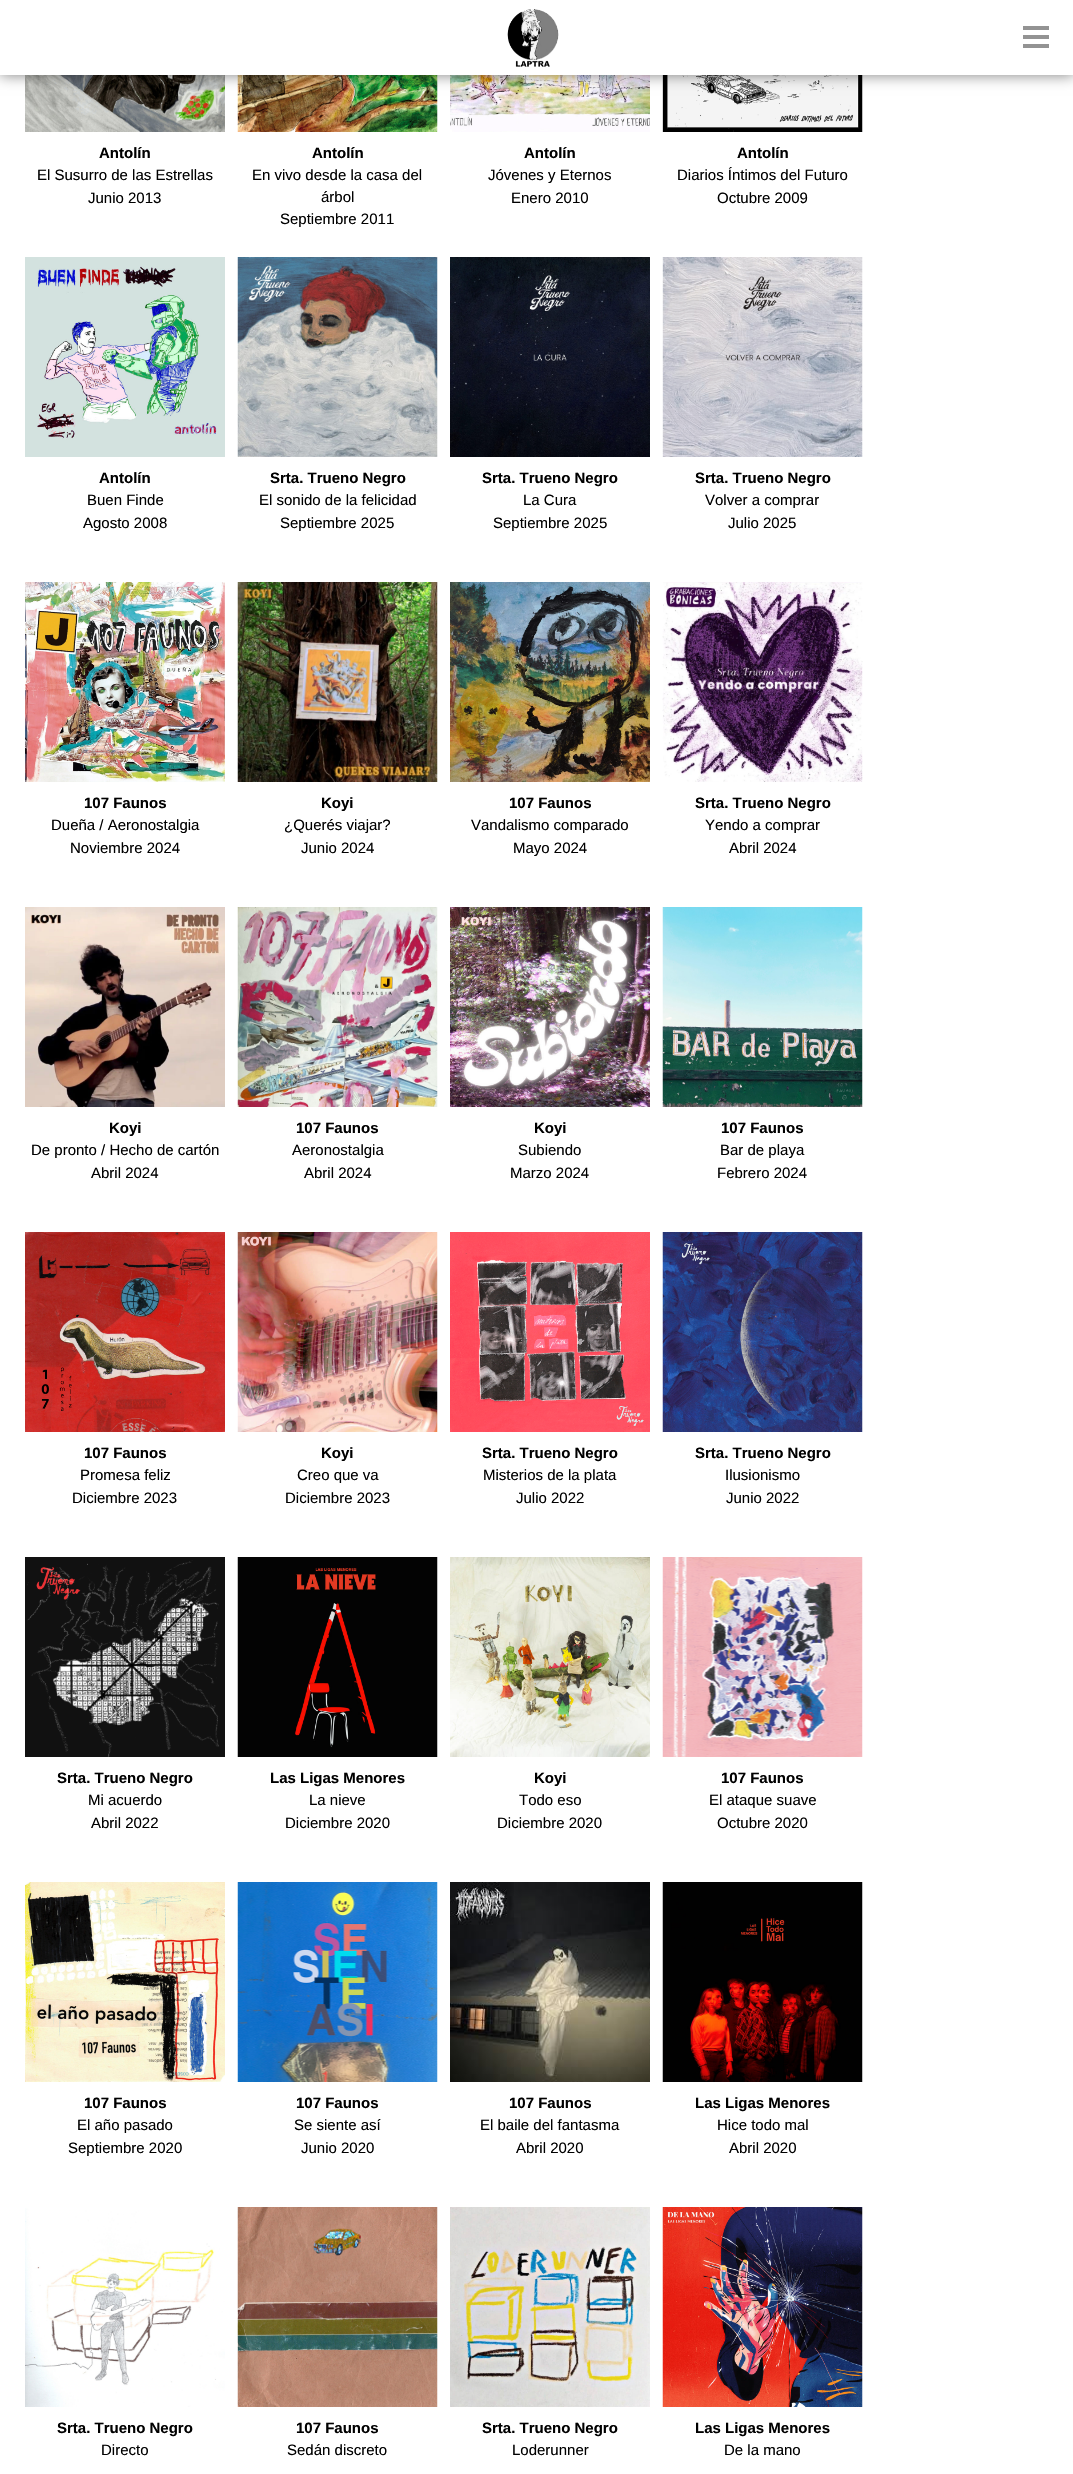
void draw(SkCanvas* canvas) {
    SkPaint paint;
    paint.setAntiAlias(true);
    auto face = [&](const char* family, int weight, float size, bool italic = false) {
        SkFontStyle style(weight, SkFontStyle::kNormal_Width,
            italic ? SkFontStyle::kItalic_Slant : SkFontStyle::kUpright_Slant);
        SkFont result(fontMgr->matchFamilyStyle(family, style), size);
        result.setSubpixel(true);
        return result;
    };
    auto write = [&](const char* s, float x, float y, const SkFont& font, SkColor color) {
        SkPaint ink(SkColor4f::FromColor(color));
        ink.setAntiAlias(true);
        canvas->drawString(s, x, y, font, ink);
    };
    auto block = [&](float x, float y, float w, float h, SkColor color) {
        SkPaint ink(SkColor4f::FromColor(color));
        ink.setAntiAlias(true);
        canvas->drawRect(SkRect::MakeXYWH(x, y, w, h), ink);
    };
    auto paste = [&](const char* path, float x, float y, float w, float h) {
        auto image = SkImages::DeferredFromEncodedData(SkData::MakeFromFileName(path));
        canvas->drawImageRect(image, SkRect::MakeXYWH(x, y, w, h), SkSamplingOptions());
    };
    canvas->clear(SK_ColorWHITE);
    paste("pic2.png", 25, 75, 200, 57);
    paste("pic3.png", 237, 75, 201, 57);
    paste("pic4.png", 450, 75, 200, 57);
    paste("pic5.png", 662, 75, 201, 57);
    paint.setColor(SkColorSetARGB(128, 0, 0, 0));
    paint.setMaskFilter(SkMaskFilter::MakeBlur(kNormal_SkBlurStyle, 7));
    canvas->drawRect(SkRect::MakeXYWH(0, 0, 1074, 75), paint);
    paint.setMaskFilter(nullptr);
    block(0, 0, 1073, 75, SK_ColorWHITE);
    paste("pic1.png", 507, 9, 52, 58);
    block(1023, 26, 26, 4, SkColorSetRGB(147, 147, 147));
    block(1023, 35, 26, 4, SkColorSetRGB(147, 147, 147));
    block(1023, 44, 26, 4, SkColorSetRGB(147, 147, 147));
    auto kFont1 = face("Liberation Sans", 700, 15);
    write("Antolín", 99, 158, kFont1, SK_ColorBLACK);
    auto kFont2 = face("Liberation Sans", 400, 15);
    write("El Susurro de las Estrellas", 37, 180, kFont2, SK_ColorBLACK);
    write("Junio 2013", 88, 203, kFont2, SK_ColorBLACK);
    write("Antolín", 312, 158, kFont1, SK_ColorBLACK);
    write("En vivo desde la casa del", 252, 180, kFont2, SK_ColorBLACK);
    write("árbol", 321, 202, kFont2, SK_ColorBLACK);
    write("Septiembre 2011", 280, 224, kFont2, SK_ColorBLACK);
    write("Antolín", 524, 158, kFont1, SK_ColorBLACK);
    write("Jóvenes y Eternos", 488, 180, kFont2, SK_ColorBLACK);
    write("Enero 2010", 511, 203, kFont2, SK_ColorBLACK);
    write("Antolín", 737, 158, kFont1, SK_ColorBLACK);
    write("Diarios Íntimos del Futuro", 677, 180, kFont2, SK_ColorBLACK);
    write("Octubre 2009", 717, 203, kFont2, SK_ColorBLACK);
    paste("pic6.png", 25, 257, 200, 200);
    write("Antolín", 99, 483, kFont1, SK_ColorBLACK);
    write("Buen Finde", 87, 505, kFont2, SK_ColorBLACK);
    write("Agosto 2008", 83, 528, kFont2, SK_ColorBLACK);
    paste("pic7.png", 237, 257, 201, 200);
    write("Srta. Trueno Negro", 270, 483, kFont1, SK_ColorBLACK);
    write("El sonido de la felicidad", 259, 505, kFont2, SK_ColorBLACK);
    write("Septiembre 2025", 280, 528, kFont2, SK_ColorBLACK);
    paste("pic8.png", 450, 257, 200, 200);
    write("Srta. Trueno Negro", 482, 483, kFont1, SK_ColorBLACK);
    write("La Cura", 523, 505, kFont2, SK_ColorBLACK);
    write("Septiembre 2025", 493, 528, kFont2, SK_ColorBLACK);
    paste("pic9.png", 662, 257, 201, 200);
    write("Srta. Trueno Negro", 695, 483, kFont1, SK_ColorBLACK);
    write("Volver a comprar", 705, 505, kFont2, SK_ColorBLACK);
    write("Julio 2025", 728, 528, kFont2, SK_ColorBLACK);
    paste("pic10.png", 25, 582, 200, 200);
    write("107 Faunos", 84, 808, kFont1, SK_ColorBLACK);
    write("Dueña / Aeronostalgia", 51, 830, kFont2, SK_ColorBLACK);
    write("Noviembre 2024", 70, 853, kFont2, SK_ColorBLACK);
    paste("pic11.png", 237, 582, 201, 200);
    write("Koyi", 321, 808, kFont1, SK_ColorBLACK);
    write("¿Querés viajar?", 284, 830, kFont2, SK_ColorBLACK);
    write("Junio 2024", 301, 853, kFont2, SK_ColorBLACK);
    paste("pic12.png", 450, 582, 200, 200);
    write("107 Faunos", 509, 808, kFont1, SK_ColorBLACK);
    write("Vandalismo comparado", 471, 830, kFont2, SK_ColorBLACK);
    write("Mayo 2024", 513, 853, kFont2, SK_ColorBLACK);
    paste("pic13.png", 662, 582, 201, 200);
    write("Srta. Trueno Negro", 695, 808, kFont1, SK_ColorBLACK);
    write("Yendo a comprar", 705, 830, kFont2, SK_ColorBLACK);
    write("Abril 2024", 729, 853, kFont2, SK_ColorBLACK);
    paste("pic14.png", 25, 907, 200, 200);
    write("Koyi", 109, 1133, kFont1, SK_ColorBLACK);
    write("De pronto / Hecho de cartón", 31, 1155, kFont2, SK_ColorBLACK);
    write("Abril 2024", 91, 1178, kFont2, SK_ColorBLACK);
    paste("pic15.png", 237, 907, 201, 200);
    write("107 Faunos", 296, 1133, kFont1, SK_ColorBLACK);
    write("Aeronostalgia", 292, 1155, kFont2, SK_ColorBLACK);
    write("Abril 2024", 304, 1178, kFont2, SK_ColorBLACK);
    paste("pic16.png", 450, 907, 200, 200);
    write("Koyi", 534, 1133, kFont1, SK_ColorBLACK);
    write("Subiendo", 518, 1155, kFont2, SK_ColorBLACK);
    write("Marzo 2024", 510, 1178, kFont2, SK_ColorBLACK);
    paste("pic17.png", 662, 907, 201, 200);
    write("107 Faunos", 721, 1133, kFont1, SK_ColorBLACK);
    write("Bar de playa", 720, 1155, kFont2, SK_ColorBLACK);
    write("Febrero 2024", 717, 1178, kFont2, SK_ColorBLACK);
    paste("pic18.png", 25, 1232, 200, 200);
    write("107 Faunos", 84, 1458, kFont1, SK_ColorBLACK);
    write("Promesa feliz", 80, 1480, kFont2, SK_ColorBLACK);
    write("Diciembre 2023", 72, 1503, kFont2, SK_ColorBLACK);
    paste("pic19.png", 237, 1232, 201, 200);
    write("Koyi", 321, 1458, kFont1, SK_ColorBLACK);
    write("Creo que va", 297, 1480, kFont2, SK_ColorBLACK);
    write("Diciembre 2023", 285, 1503, kFont2, SK_ColorBLACK);
    paste("pic20.png", 450, 1232, 200, 200);
    write("Srta. Trueno Negro", 482, 1458, kFont1, SK_ColorBLACK);
    write("Misterios de la plata", 483, 1480, kFont2, SK_ColorBLACK);
    write("Julio 2022", 516, 1503, kFont2, SK_ColorBLACK);
    paste("pic21.png", 662, 1232, 201, 200);
    write("Srta. Trueno Negro", 695, 1458, kFont1, SK_ColorBLACK);
    write("Ilusionismo", 725, 1480, kFont2, SK_ColorBLACK);
    write("Junio 2022", 726, 1503, kFont2, SK_ColorBLACK);
    paste("pic22.png", 25, 1557, 200, 200);
    write("Srta. Trueno Negro", 57, 1783, kFont1, SK_ColorBLACK);
    write("Mi acuerdo", 88, 1805, kFont2, SK_ColorBLACK);
    write("Abril 2022", 91, 1828, kFont2, SK_ColorBLACK);
    paste("pic23.png", 237, 1557, 201, 200);
    write("Las Ligas Menores", 270, 1783, kFont1, SK_ColorBLACK);
    write("La nieve", 309, 1805, kFont2, SK_ColorBLACK);
    write("Diciembre 2020", 285, 1828, kFont2, SK_ColorBLACK);
    paste("pic24.png", 450, 1557, 200, 200);
    write("Koyi", 534, 1783, kFont1, SK_ColorBLACK);
    write("Todo eso", 519, 1805, kFont2, SK_ColorBLACK);
    write("Diciembre 2020", 497, 1828, kFont2, SK_ColorBLACK);
    paste("pic25.png", 662, 1557, 201, 200);
    write("107 Faunos", 721, 1783, kFont1, SK_ColorBLACK);
    write("El ataque suave", 709, 1805, kFont2, SK_ColorBLACK);
    write("Octubre 2020", 717, 1828, kFont2, SK_ColorBLACK);
    paste("pic26.png", 25, 1882, 200, 200);
    write("107 Faunos", 84, 2108, kFont1, SK_ColorBLACK);
    write("El año pasado", 77, 2130, kFont2, SK_ColorBLACK);
    write("Septiembre 2020", 68, 2153, kFont2, SK_ColorBLACK);
    paste("pic27.png", 237, 1882, 201, 200);
    write("107 Faunos", 296, 2108, kFont1, SK_ColorBLACK);
    write("Se siente así", 294, 2130, kFont2, SK_ColorBLACK);
    write("Junio 2020", 301, 2153, kFont2, SK_ColorBLACK);
    paste("pic28.png", 450, 1882, 200, 200);
    write("107 Faunos", 509, 2108, kFont1, SK_ColorBLACK);
    write("El baile del fantasma", 480, 2130, kFont2, SK_ColorBLACK);
    write("Abril 2020", 516, 2153, kFont2, SK_ColorBLACK);
    paste("pic29.png", 662, 1882, 201, 200);
    write("Las Ligas Menores", 695, 2108, kFont1, SK_ColorBLACK);
    write("Hice todo mal", 717, 2130, kFont2, SK_ColorBLACK);
    write("Abril 2020", 729, 2153, kFont2, SK_ColorBLACK);
    paste("pic30.png", 25, 2208, 200, 199);
    write("Srta. Trueno Negro", 57, 2433, kFont1, SK_ColorBLACK);
    write("Directo", 101, 2455, kFont2, SK_ColorBLACK);
    paste("pic31.png", 237, 2207, 201, 200);
    write("107 Faunos", 296, 2433, kFont1, SK_ColorBLACK);
    write("Sedán discreto", 287, 2455, kFont2, SK_ColorBLACK);
    paste("pic32.png", 450, 2207, 200, 200);
    write("Srta. Trueno Negro", 482, 2433, kFont1, SK_ColorBLACK);
    write("Loderunner", 512, 2455, kFont2, SK_ColorBLACK);
    paste("pic33.png", 662, 2207, 201, 200);
    write("Las Ligas Menores", 695, 2433, kFont1, SK_ColorBLACK);
    write("De la mano", 724, 2455, kFont2, SK_ColorBLACK);
}
